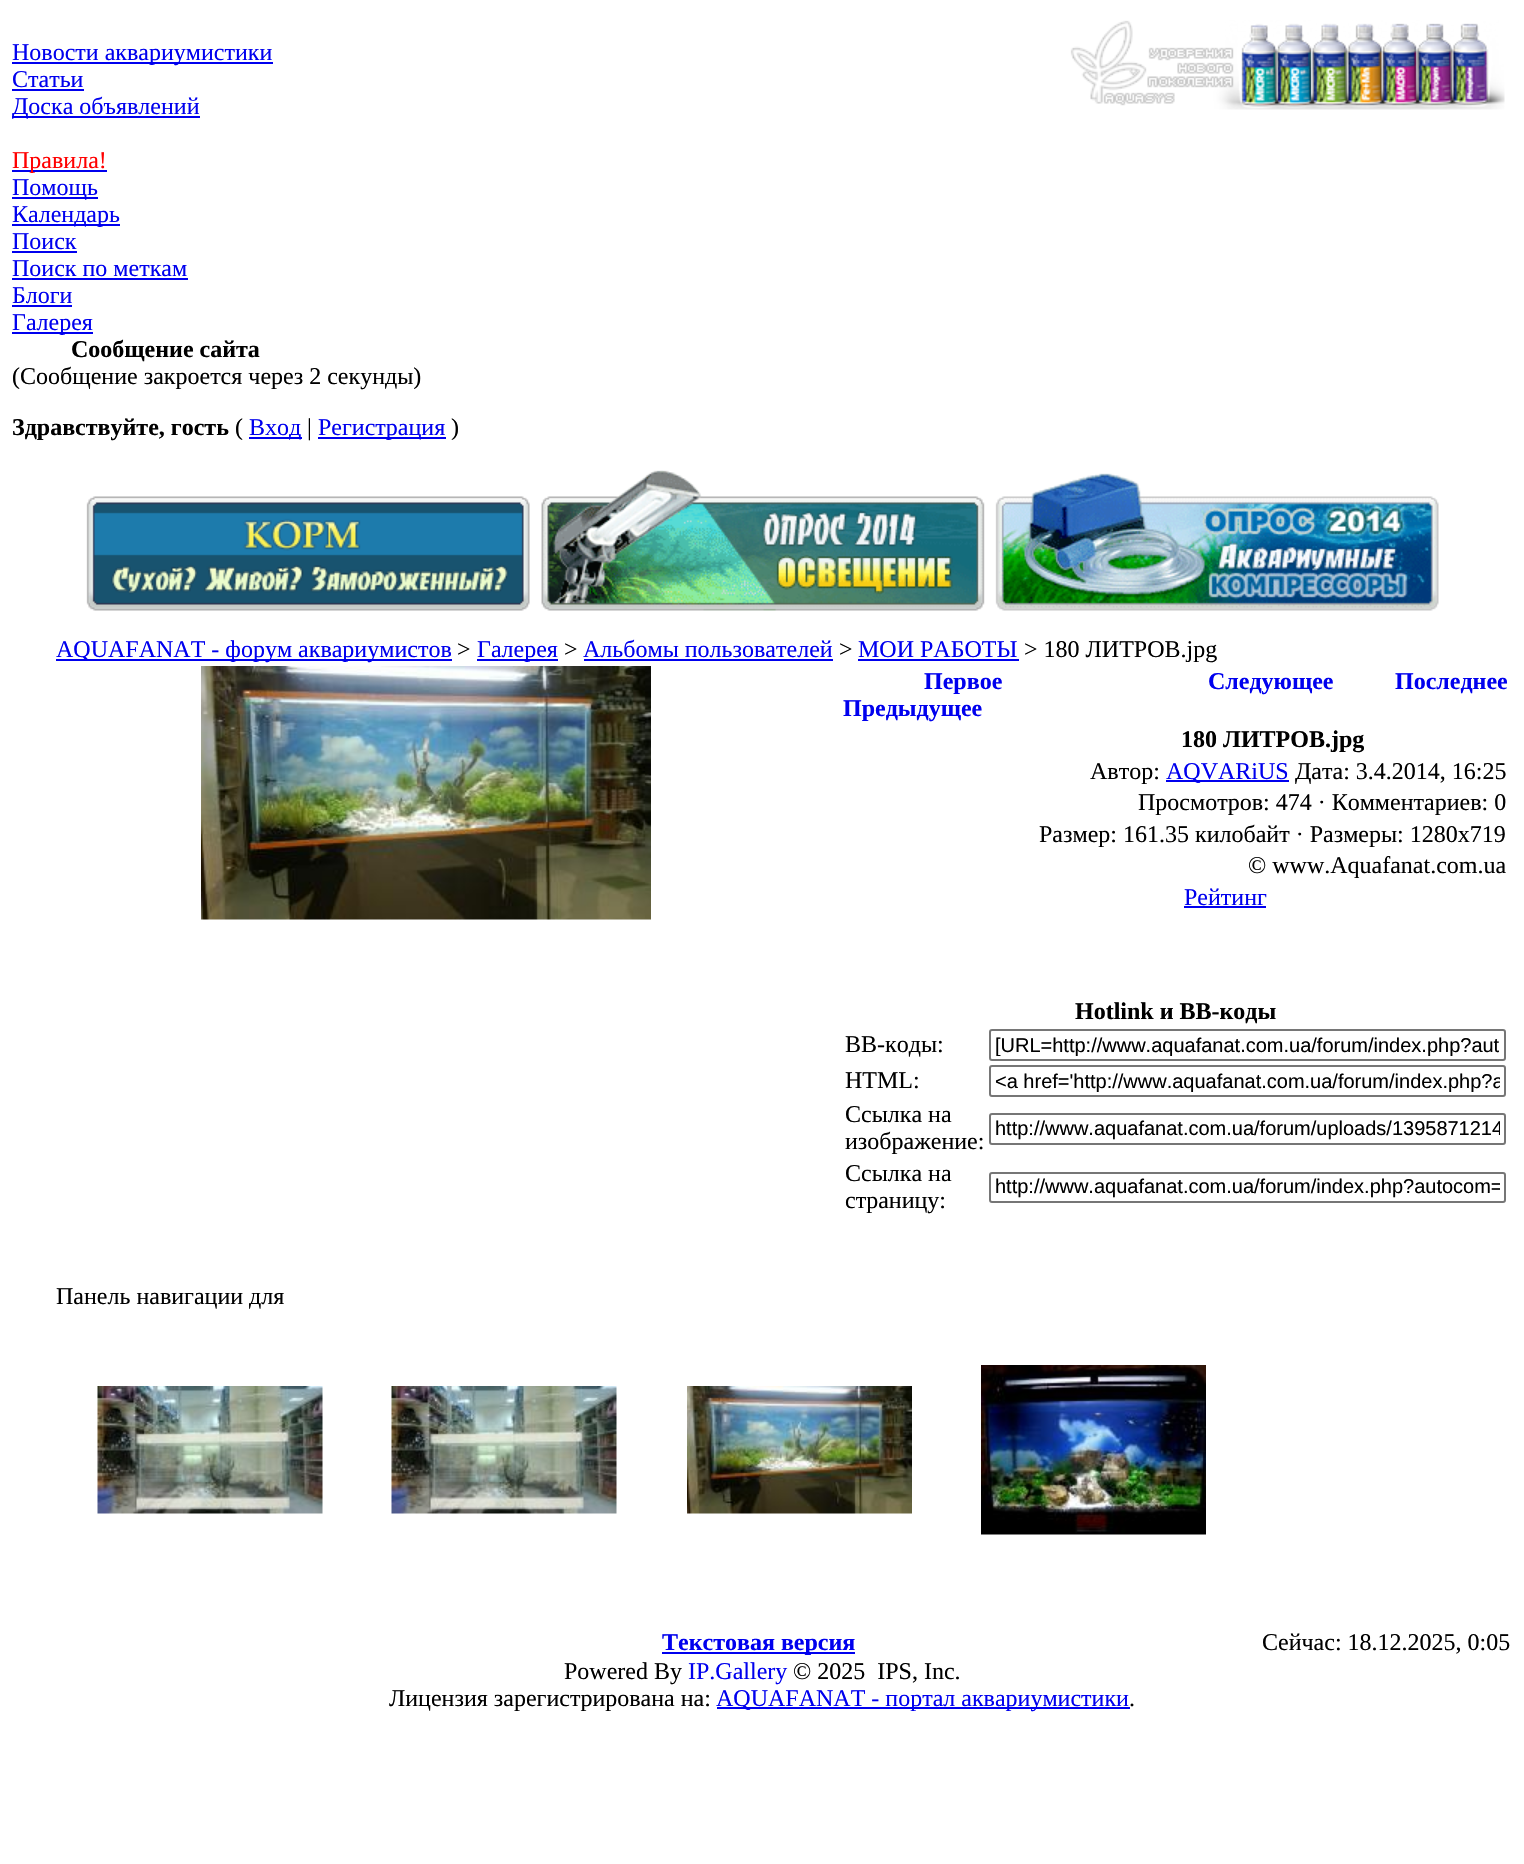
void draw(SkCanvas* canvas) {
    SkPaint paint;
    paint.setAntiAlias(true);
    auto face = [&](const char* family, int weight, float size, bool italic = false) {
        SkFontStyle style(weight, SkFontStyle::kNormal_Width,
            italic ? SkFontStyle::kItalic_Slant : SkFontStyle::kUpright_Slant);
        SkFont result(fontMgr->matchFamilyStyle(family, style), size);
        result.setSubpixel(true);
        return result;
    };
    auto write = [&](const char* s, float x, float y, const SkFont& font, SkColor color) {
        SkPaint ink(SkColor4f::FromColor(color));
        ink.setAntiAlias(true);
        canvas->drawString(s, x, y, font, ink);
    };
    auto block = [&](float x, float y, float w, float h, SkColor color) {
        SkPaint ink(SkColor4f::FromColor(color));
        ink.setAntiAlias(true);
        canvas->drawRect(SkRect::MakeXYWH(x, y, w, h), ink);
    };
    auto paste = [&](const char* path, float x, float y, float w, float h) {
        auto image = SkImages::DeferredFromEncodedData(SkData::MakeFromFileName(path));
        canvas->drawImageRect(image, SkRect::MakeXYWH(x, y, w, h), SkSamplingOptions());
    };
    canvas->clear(SK_ColorWHITE);
    block(12, 62, 261, 2, SkColorSetRGB(0, 0, 238));
    auto kFont1 = face("Liberation Serif", 400, 24);
    write("Новости аквариумистики", 12, 60, kFont1, SkColorSetRGB(0, 0, 238));
    write("Статьи", 12, 87, kFont1, SkColorSetRGB(0, 0, 238));
    block(12, 89, 72, 2, SkColorSetRGB(0, 0, 238));
    block(12, 116, 188, 2, SkColorSetRGB(0, 0, 238));
    write("Доска объявлений", 12, 114, kFont1, SkColorSetRGB(0, 0, 238));
    block(12, 170, 95, 2, SkColorSetRGB(0, 0, 238));
    write("Правила!", 12, 168, kFont1, SkColorSetRGB(255, 0, 0));
    block(12, 197, 86, 2, SkColorSetRGB(0, 0, 238));
    write("Помощь", 12, 195, kFont1, SkColorSetRGB(0, 0, 238));
    block(12, 224, 108, 2, SkColorSetRGB(0, 0, 238));
    write("Календарь", 12, 222, kFont1, SkColorSetRGB(0, 0, 238));
    write("Поиск", 12, 249, kFont1, SkColorSetRGB(0, 0, 238));
    block(12, 251, 65, 2, SkColorSetRGB(0, 0, 238));
    write("Поиск по меткам", 12, 276, kFont1, SkColorSetRGB(0, 0, 238));
    block(12, 278, 176, 2, SkColorSetRGB(0, 0, 238));
    write("Блоги", 12, 303, kFont1, SkColorSetRGB(0, 0, 238));
    block(12, 305, 60, 2, SkColorSetRGB(0, 0, 238));
    block(12, 332, 81, 2, SkColorSetRGB(0, 0, 238));
    write("Галерея", 12, 330, kFont1, SkColorSetRGB(0, 0, 238));
    paste("pic1.png", 1070, 20, 435, 90);
    auto kFont2 = face("Liberation Serif", 700, 24);
    write("Сообщение сайта", 71, 357, kFont2, SK_ColorBLACK);
    write("(Сообщение закроется через 2 секунды)", 12, 384, kFont1, SK_ColorBLACK);
    write("Здравствуйте, гость", 12, 435, kFont2, SK_ColorBLACK);
    write("(", 235, 435, kFont1, SK_ColorBLACK);
    block(249, 437, 53, 2, SkColorSetRGB(0, 0, 238));
    write("Вход", 249, 435, kFont1, SkColorSetRGB(0, 0, 238));
    write("|", 307, 435, kFont1, SK_ColorBLACK);
    block(318, 437, 128, 2, SkColorSetRGB(0, 0, 238));
    write("Регистрация", 318, 435, kFont1, SkColorSetRGB(0, 0, 238));
    write(")", 451, 435, kFont1, SK_ColorBLACK);
    paste("pic2.png", 86, 496, 444, 115);
    paste("pic3.png", 541, 470, 444, 141);
    paste("pic4.png", 995, 473, 444, 138);
    block(56, 659, 396, 2, SkColorSetRGB(0, 0, 238));
    write("AQUAFANAT - форум аквариумистов", 56, 657, kFont1, SkColorSetRGB(0, 0, 238));
    write(">", 457, 657, kFont1, SK_ColorBLACK);
    block(477, 659, 81, 2, SkColorSetRGB(0, 0, 238));
    write("Галерея", 477, 657, kFont1, SkColorSetRGB(0, 0, 238));
    write(">", 564, 657, kFont1, SK_ColorBLACK);
    write("Альбомы пользователей", 583, 657, kFont1, SkColorSetRGB(0, 0, 238));
    block(584, 659, 249, 2, SkColorSetRGB(0, 0, 238));
    write(">", 839, 657, kFont1, SK_ColorBLACK);
    write("МОИ РАБОТЫ", 858, 657, kFont1, SkColorSetRGB(0, 0, 238));
    block(858, 659, 161, 2, SkColorSetRGB(0, 0, 238));
    write("> 180 ЛИТРОВ.jpg", 1024, 657, kFont1, SK_ColorBLACK);
    paste("pic5.png", 201, 666, 450, 254);
    write("Первое", 924, 689, kFont2, SkColorSetRGB(0, 0, 238));
    write("Предыдущее", 843, 716, kFont2, SkColorSetRGB(0, 0, 238));
    write("Следующее", 1208, 689, kFont2, SkColorSetRGB(0, 0, 238));
    write("Последнее", 1395, 689, kFont2, SkColorSetRGB(0, 0, 238));
    write("180 ЛИТРОВ.jpg", 1181, 747, kFont2, SK_ColorBLACK);
    write("Автор:", 1090, 779, kFont1, SK_ColorBLACK);
    block(1166, 780, 123, 2, SkColorSetRGB(0, 0, 238));
    write("AQVARiUS", 1166, 779, kFont1, SkColorSetRGB(0, 0, 238));
    write("Дата: 3.4.2014, 16:25", 1295, 779, kFont1, SK_ColorBLACK);
    write("Просмотров: 474 · Комментариев: 0", 1138, 810, kFont1, SK_ColorBLACK);
    write("Размер: 161.35 килобайт · Размеры: 1280x719", 1039, 842, kFont1, SK_ColorBLACK);
    write("© www.Aquafanat.com.ua", 1248, 873, kFont1, SK_ColorBLACK);
    write("Рейтинг", 1184, 905, kFont1, SkColorSetRGB(0, 0, 238));
    block(1184, 906, 82, 2, SkColorSetRGB(0, 0, 238));
    write("Hotlink и BB-коды", 1075, 1019, kFont2, SK_ColorBLACK);
    write("BB-коды:", 845, 1052, kFont1, SK_ColorBLACK);
    paint.setStyle(SkPaint::kStroke_Style);
    paint.setStrokeWidth(2);
    paint.setColor(SkColorSetRGB(118, 118, 118));
    canvas->drawRoundRect(SkRect::MakeXYWH(990, 1030, 515, 30), 2, 2, paint);
    canvas->save();
    canvas->clipRect(SkRect::MakeXYWH(995, 1034, 505, 22));
    auto kFont3 = face("Liberation Sans", 400, 20);
    write("[URL=http://www.aquafanat.com.ua/forum/index.php?aut", 995, 1052, kFont3, SK_ColorBLACK);
    canvas->restore();
    write("HTML:", 845, 1088, kFont1, SK_ColorBLACK);
    canvas->drawRoundRect(SkRect::MakeXYWH(990, 1066, 515, 30), 2, 2, paint);
    canvas->save();
    canvas->clipRect(SkRect::MakeXYWH(995, 1070, 505, 22));
    write("<a href='http://www.aquafanat.com.ua/forum/index.php?a", 995, 1088, kFont3, SK_ColorBLACK);
    canvas->restore();
    write("Ссылка на", 845, 1122, kFont1, SK_ColorBLACK);
    write("изображение:", 845, 1149, kFont1, SK_ColorBLACK);
    canvas->drawRoundRect(SkRect::MakeXYWH(990, 1114, 515, 30), 2, 2, paint);
    canvas->save();
    canvas->clipRect(SkRect::MakeXYWH(995, 1118, 505, 22));
    write("http://www.aquafanat.com.ua/forum/uploads/1395871214", 995, 1135, kFont3, SK_ColorBLACK);
    canvas->restore();
    write("Ссылка на", 845, 1181, kFont1, SK_ColorBLACK);
    write("страницу:", 845, 1208, kFont1, SK_ColorBLACK);
    canvas->drawRoundRect(SkRect::MakeXYWH(990, 1173, 515, 29), 2, 2, paint);
    canvas->save();
    canvas->clipRect(SkRect::MakeXYWH(995, 1176, 505, 23));
    write("http://www.aquafanat.com.ua/forum/index.php?autocom=", 995, 1193, kFont3, SK_ColorBLACK);
    canvas->restore();
    write("Панель навигации для", 56, 1304, kFont1, SK_ColorBLACK);
    paste("pic6.png", 97, 1386, 226, 128);
    paste("pic7.png", 391, 1386, 226, 128);
    paste("pic8.png", 687, 1386, 225, 128);
    paste("pic9.png", 981, 1365, 225, 170);
    block(662, 1652, 193, 2, SkColorSetRGB(0, 0, 238));
    write("Текстовая версия", 662, 1650, kFont2, SkColorSetRGB(0, 0, 238));
    write("Сейчас: 18.12.2025, 0:05", 1262, 1650, kFont1, SK_ColorBLACK);
    write("Powered By", 564, 1679, kFont1, SK_ColorBLACK);
    write("IP.Gallery", 688, 1679, kFont1, SkColorSetRGB(0, 0, 238));
    write("© 2025  IPS, Inc.", 793, 1679, kFont1, SK_ColorBLACK);
    write("Лицензия зарегистрирована на:", 389, 1706, kFont1, SK_ColorBLACK);
    block(717, 1707, 413, 2, SkColorSetRGB(0, 0, 238));
    write("AQUAFANAT - портал аквариумистики", 716, 1706, kFont1, SkColorSetRGB(0, 0, 238));
    write(".", 1129, 1706, kFont1, SK_ColorBLACK);
}
